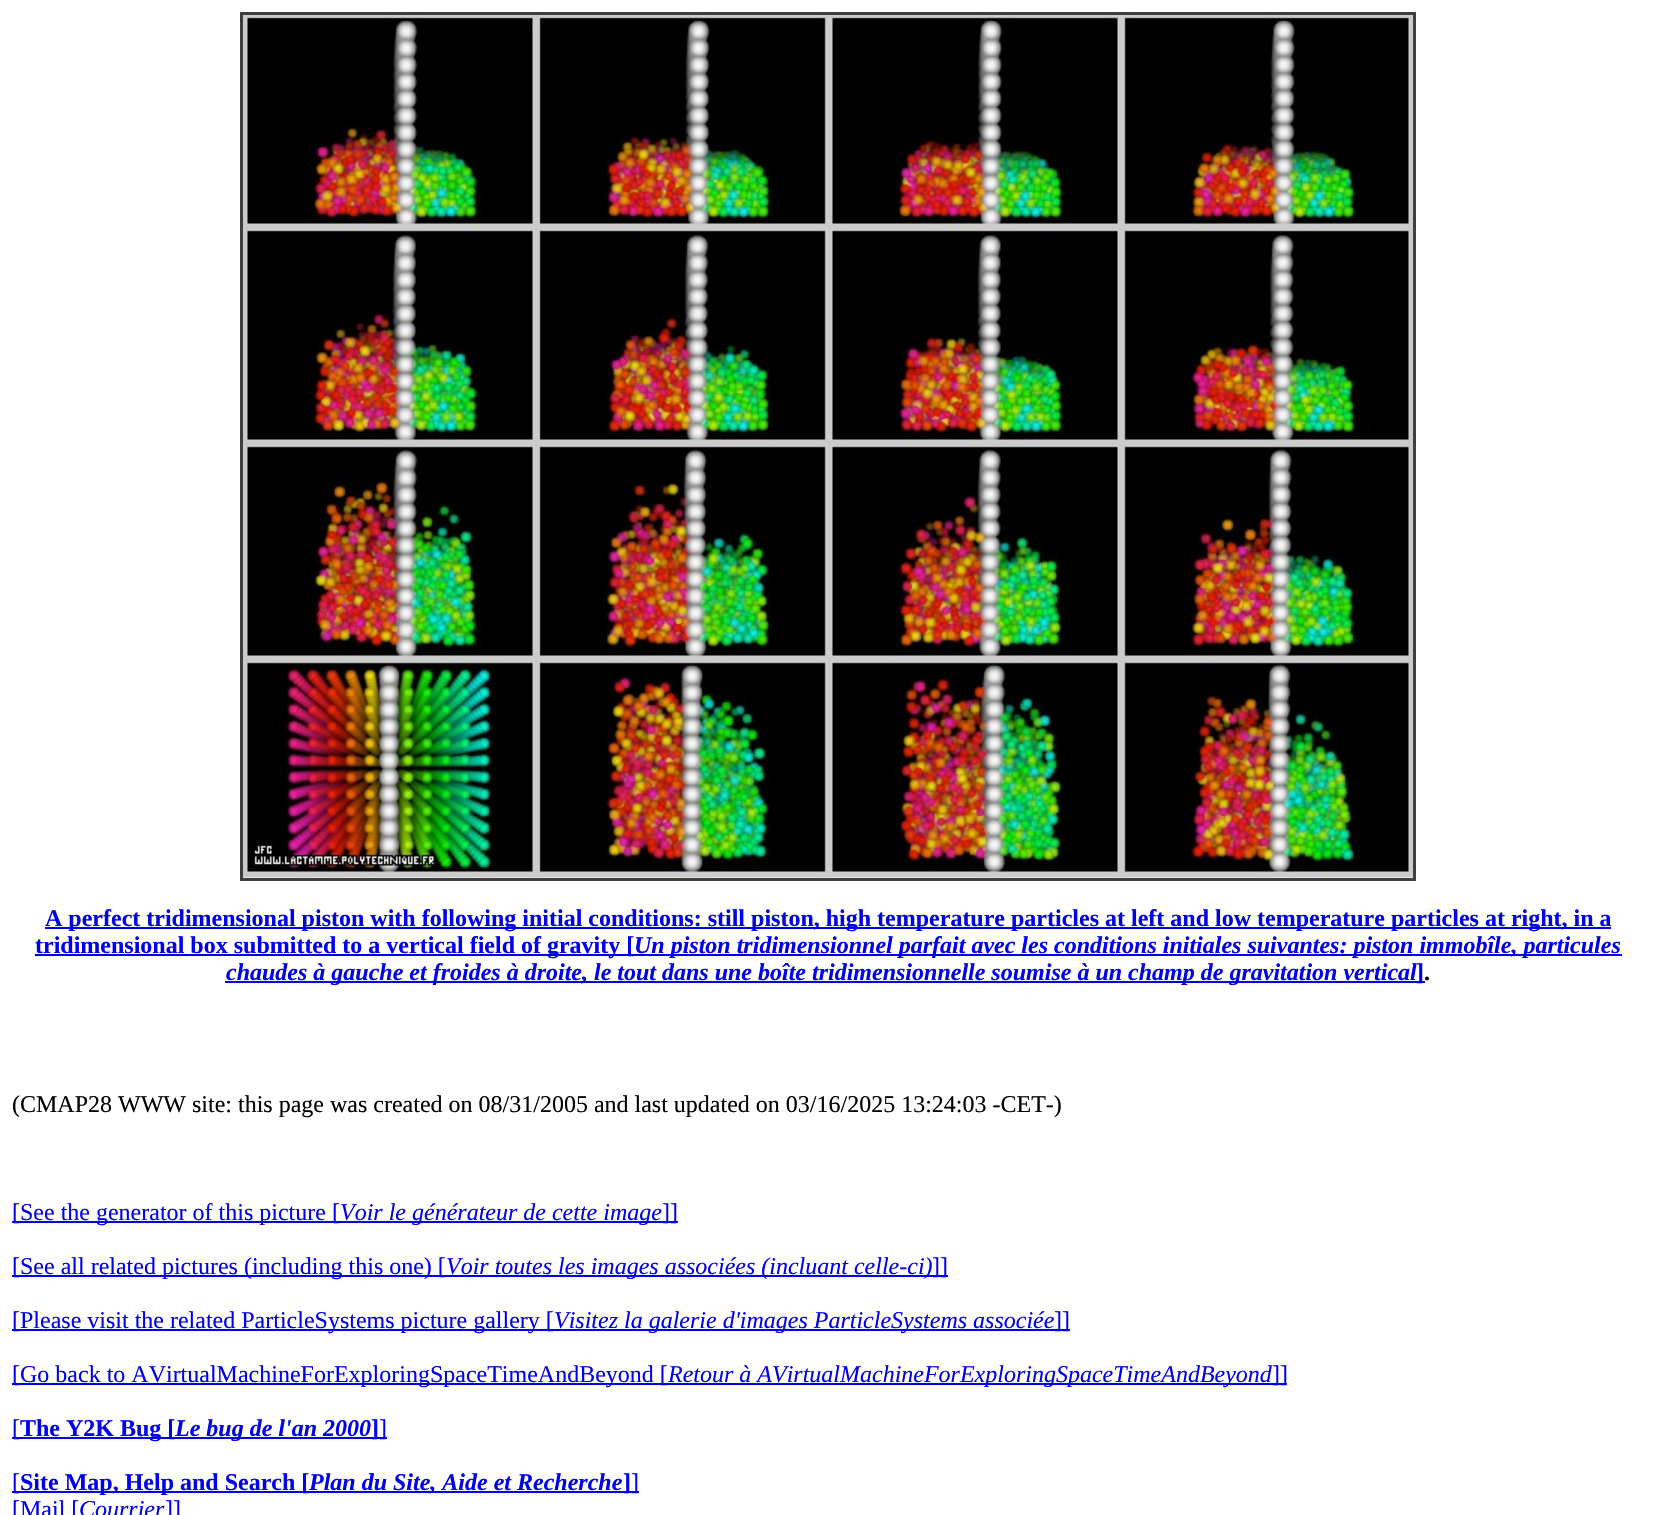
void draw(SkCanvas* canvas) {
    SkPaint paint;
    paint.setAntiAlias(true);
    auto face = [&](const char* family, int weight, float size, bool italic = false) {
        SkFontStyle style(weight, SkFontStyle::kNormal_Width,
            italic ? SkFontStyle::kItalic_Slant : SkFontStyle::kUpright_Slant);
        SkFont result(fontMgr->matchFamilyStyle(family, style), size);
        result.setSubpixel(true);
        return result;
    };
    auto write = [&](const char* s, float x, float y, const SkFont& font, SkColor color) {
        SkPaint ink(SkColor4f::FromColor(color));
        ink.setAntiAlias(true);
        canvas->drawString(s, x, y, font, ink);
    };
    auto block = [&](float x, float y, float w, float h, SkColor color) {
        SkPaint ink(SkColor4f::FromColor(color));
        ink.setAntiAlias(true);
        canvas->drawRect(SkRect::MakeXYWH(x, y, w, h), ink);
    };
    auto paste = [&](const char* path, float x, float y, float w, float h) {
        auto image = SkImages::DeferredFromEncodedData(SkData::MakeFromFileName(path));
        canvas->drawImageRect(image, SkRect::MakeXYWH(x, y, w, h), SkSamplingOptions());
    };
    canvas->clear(SK_ColorWHITE);
    paint.setStyle(SkPaint::kStroke_Style);
    paint.setStrokeWidth(3);
    paint.setColor(SkColorSetRGB(63, 63, 63));
    canvas->drawRect(SkRect::MakeXYWH(241.5f, 13.5f, 1173, 866), paint);
    paste("pic1.png", 243, 15, 1170, 863);
    block(45, 927, 1566, 2, SkColorSetRGB(0, 0, 238));
    auto kFont1 = face("Liberation Serif", 700, 24);
    write("A perfect tridimensional piston with following initial conditions: still piston, high temperature particles at left and low temperature particles at right, in a", 45, 926, kFont1, SkColorSetRGB(0, 0, 238));
    block(35, 954, 1587, 2, SkColorSetRGB(0, 0, 238));
    write("tridimensional box submitted to a vertical field of gravity [", 35, 953, kFont1, SkColorSetRGB(0, 0, 238));
    auto kFont2 = face("Liberation Serif", 700, 24, true);
    write("Un piston tridimensionnel parfait avec les conditions initiales suivantes: piston immobîle, particules", 634, 953, kFont2, SkColorSetRGB(0, 0, 238));
    block(225, 981, 1191, 2, SkColorSetRGB(0, 0, 238));
    write("chaudes à gauche et froides à droite, le tout dans une boîte tridimensionnelle soumise à un champ de gravitation vertical", 226, 980, kFont2, SkColorSetRGB(0, 0, 238));
    block(1416, 981, 9, 2, SkColorSetRGB(0, 0, 238));
    write("]", 1416, 980, kFont1, SkColorSetRGB(0, 0, 238));
    write(".", 1424, 980, kFont1, SK_ColorBLACK);
    auto kFont3 = face("Liberation Serif", 400, 24);
    write("(CMAP28 WWW site: this page was created on 08/31/2005 and last updated on 03/16/2025 13:24:03 -CET-)", 12, 1112, kFont3, SK_ColorBLACK);
    block(12, 1221, 666, 2, SkColorSetRGB(0, 0, 238));
    write("[See the generator of this picture [", 12, 1220, kFont3, SkColorSetRGB(0, 0, 238));
    auto kFont4 = face("Liberation Serif", 400, 24, true);
    write("Voir le générateur de cette image", 340, 1220, kFont4, SkColorSetRGB(0, 0, 238));
    write("]]", 662, 1220, kFont3, SkColorSetRGB(0, 0, 238));
    block(12, 1275, 936, 2, SkColorSetRGB(0, 0, 238));
    write("[See all related pictures (including this one) [", 12, 1274, kFont3, SkColorSetRGB(0, 0, 238));
    write("Voir toutes les images associées (incluant celle-ci)", 446, 1274, kFont4, SkColorSetRGB(0, 0, 238));
    write("]]", 932, 1274, kFont3, SkColorSetRGB(0, 0, 238));
    block(12, 1329, 1058, 2, SkColorSetRGB(0, 0, 238));
    write("[Please visit the related ParticleSystems picture gallery [", 12, 1328, kFont3, SkColorSetRGB(0, 0, 238));
    write("Visitez la galerie d'images ParticleSystems associée", 554, 1328, kFont4, SkColorSetRGB(0, 0, 238));
    write("]]", 1054, 1328, kFont3, SkColorSetRGB(0, 0, 238));
    block(12, 1383, 1275, 2, SkColorSetRGB(0, 0, 238));
    write("[Go back to AVirtualMachineForExploringSpaceTimeAndBeyond [", 12, 1382, kFont3, SkColorSetRGB(0, 0, 238));
    write("Retour à AVirtualMachineForExploringSpaceTimeAndBeyond", 668, 1382, kFont4, SkColorSetRGB(0, 0, 238));
    write("]]", 1272, 1382, kFont3, SkColorSetRGB(0, 0, 238));
    block(12, 1437, 375, 2, SkColorSetRGB(0, 0, 238));
    write("[", 12, 1436, kFont3, SkColorSetRGB(0, 0, 238));
    write("The Y2K Bug [", 20, 1436, kFont1, SkColorSetRGB(0, 0, 238));
    write("Le bug de l'an 2000", 175, 1436, kFont2, SkColorSetRGB(0, 0, 238));
    write("]", 371, 1436, kFont1, SkColorSetRGB(0, 0, 238));
    write("]", 379, 1436, kFont3, SkColorSetRGB(0, 0, 238));
    block(12, 1491, 627, 2, SkColorSetRGB(0, 0, 238));
    write("[", 12, 1490, kFont3, SkColorSetRGB(0, 0, 238));
    write("Site Map, Help and Search [", 20, 1490, kFont1, SkColorSetRGB(0, 0, 238));
    write("Plan du Site, Aide et Recherche", 309, 1490, kFont2, SkColorSetRGB(0, 0, 238));
    write("]", 623, 1490, kFont1, SkColorSetRGB(0, 0, 238));
    write("]", 631, 1490, kFont3, SkColorSetRGB(0, 0, 238));
    write("[Mail [", 12, 1517, kFont3, SkColorSetRGB(0, 0, 238));
    write("Courrier", 79, 1517, kFont4, SkColorSetRGB(0, 0, 238));
    write("]]", 165, 1517, kFont3, SkColorSetRGB(0, 0, 238));
}
